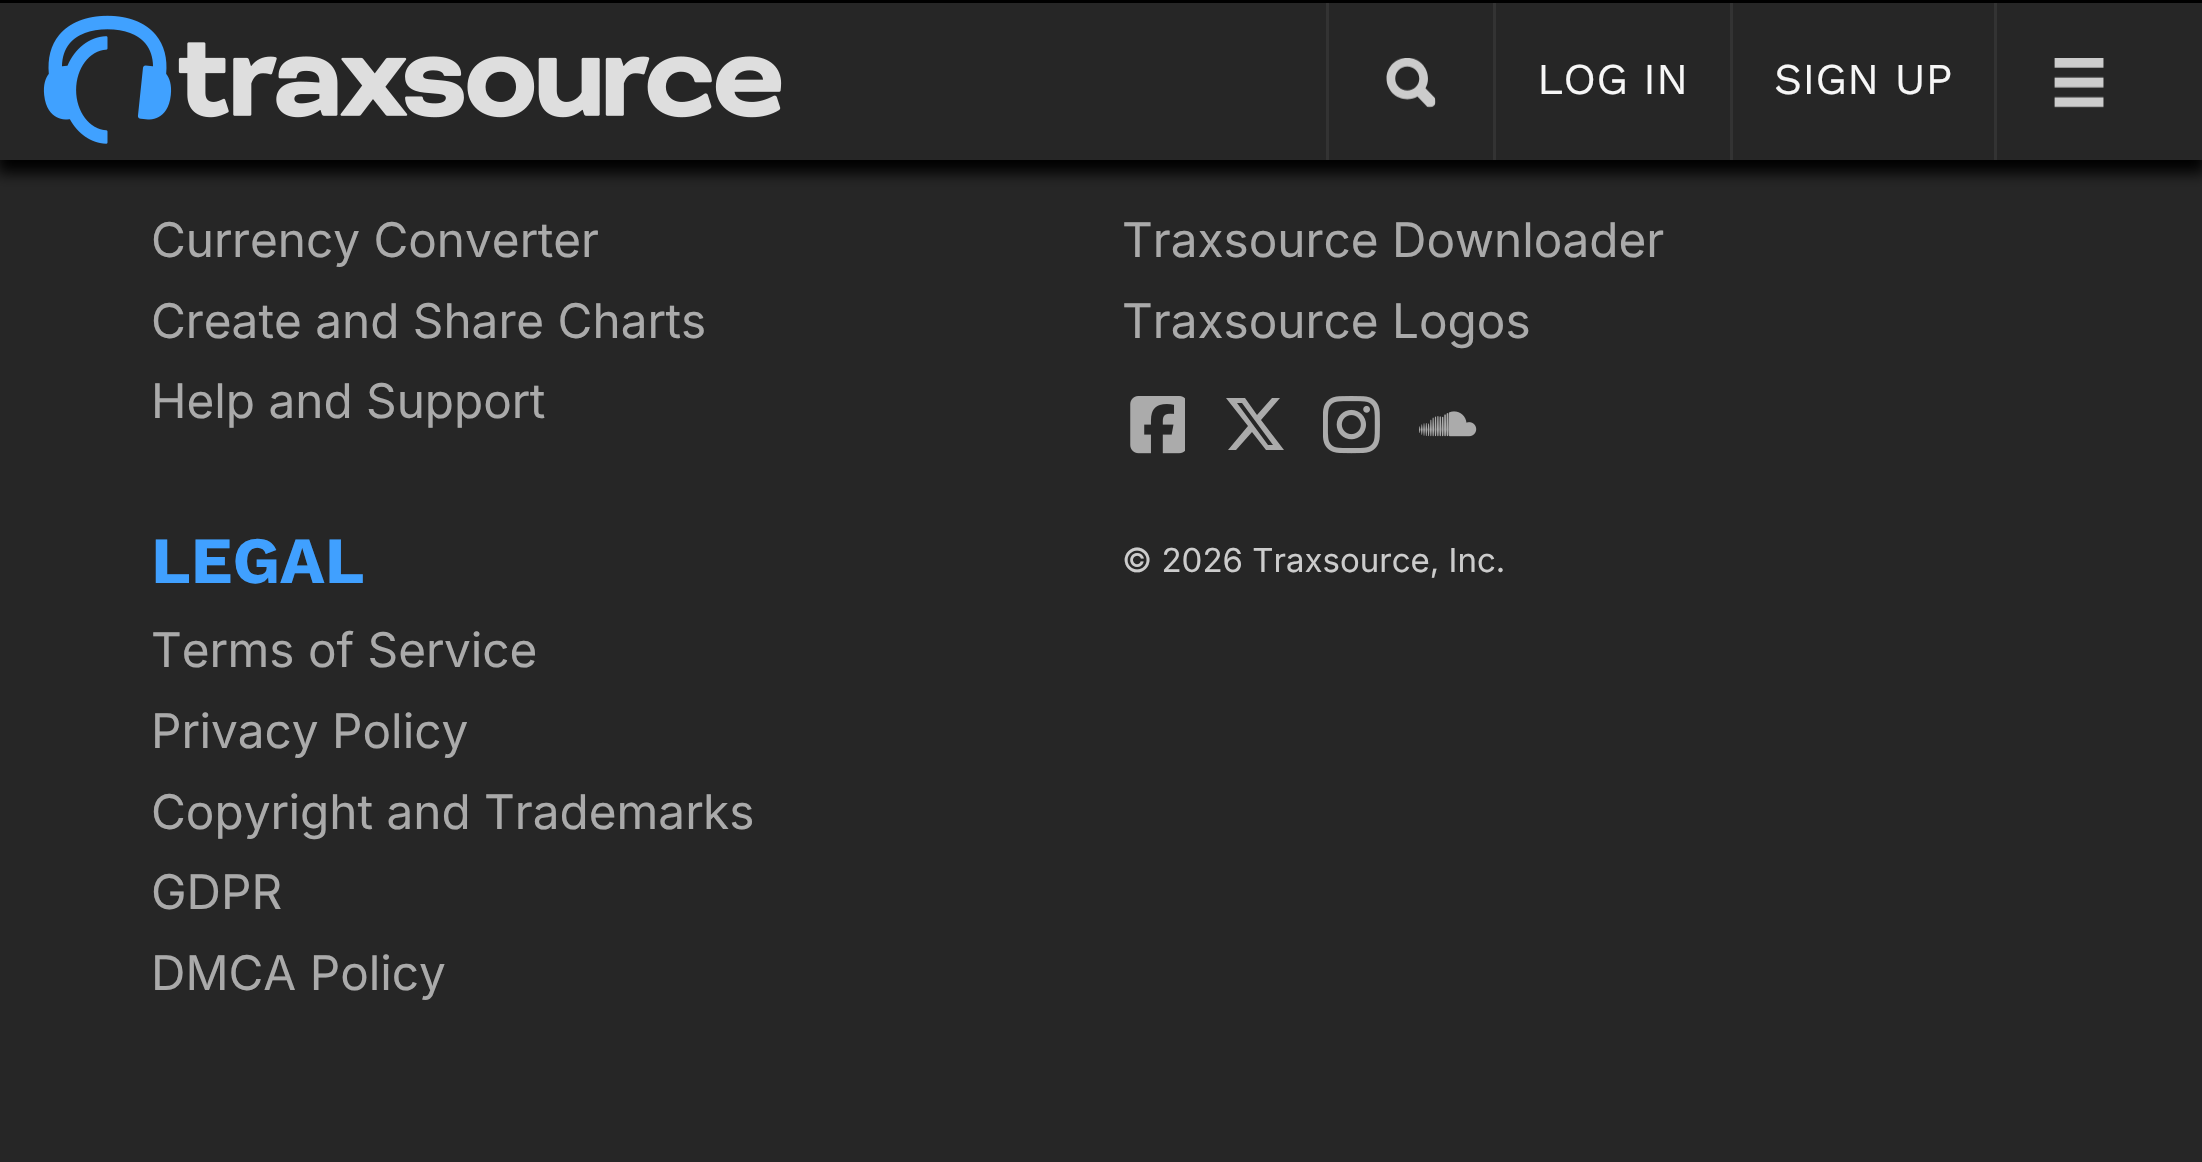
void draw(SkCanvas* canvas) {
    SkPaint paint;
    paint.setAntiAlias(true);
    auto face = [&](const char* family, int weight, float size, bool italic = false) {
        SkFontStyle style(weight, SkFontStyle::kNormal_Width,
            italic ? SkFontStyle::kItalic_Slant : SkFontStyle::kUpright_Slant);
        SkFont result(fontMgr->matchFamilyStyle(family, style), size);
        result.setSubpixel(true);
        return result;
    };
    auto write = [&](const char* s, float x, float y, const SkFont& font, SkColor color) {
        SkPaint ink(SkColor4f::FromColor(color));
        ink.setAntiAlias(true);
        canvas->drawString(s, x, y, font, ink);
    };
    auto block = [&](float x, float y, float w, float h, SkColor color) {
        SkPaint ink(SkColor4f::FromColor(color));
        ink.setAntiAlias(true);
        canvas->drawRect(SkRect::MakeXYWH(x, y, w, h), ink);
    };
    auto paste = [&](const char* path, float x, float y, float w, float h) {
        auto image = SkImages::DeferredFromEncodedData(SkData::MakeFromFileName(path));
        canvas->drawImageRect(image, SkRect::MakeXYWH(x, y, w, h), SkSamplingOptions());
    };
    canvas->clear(SkColorSetRGB(38, 38, 38));
    paint.setColor(SK_ColorBLACK);
    paint.setMaskFilter(SkMaskFilter::MakeBlur(kNormal_SkBlurStyle, 7));
    canvas->drawRect(SkRect::MakeXYWH(-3, 8, 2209, 165), paint);
    paint.setMaskFilter(nullptr);
    block(0, 3, 2202, 157, SkColorSetRGB(38, 38, 38));
    block(1326, 0, 3, 160, SkColorSetRGB(51, 51, 51));
    block(1493, 0, 3, 160, SkColorSetRGB(51, 51, 51));
    block(1730, 0, 3, 160, SkColorSetRGB(51, 51, 51));
    block(1994, 0, 3, 160, SkColorSetRGB(51, 51, 51));
    block(0, 0, 2202, 3, SK_ColorBLACK);
    paste("pic1.png", 43, 15, 739, 129);
    paste("pic2.png", 1386, 58, 50, 50);
    auto kFont1 = face("Work Sans", 400, 44);
    write("LOG IN", 1537, 94, kFont1, SkColorSetRGB(246, 246, 246));
    write("SIGN UP", 1774, 94, kFont1, SkColorSetRGB(246, 246, 246));
    paste("pic3.png", 2054, 58, 50, 50);
    auto kFont2 = face("Inter", 400, 47.7f);
    write("Currency Converter", 151, 257, kFont2, SkColorSetRGB(170, 170, 170));
    write("Create and Share Charts", 151, 338, kFont2, SkColorSetRGB(170, 170, 170));
    write("Help and Support", 151, 418, kFont2, SkColorSetRGB(170, 170, 170));
    write("Traxsource Downloader", 1122, 257, kFont2, SkColorSetRGB(170, 170, 170));
    write("Traxsource Logos", 1122, 338, kFont2, SkColorSetRGB(170, 170, 170));
    paste("pic4.png", 1130, 396, 55, 58);
    paint.setColor(SkColorSetRGB(171, 171, 171));
    canvas->drawPath(SkPathBuilder().moveTo(1272, 398).lineTo(1280, 398).lineTo(1261, 420).lineTo(1284, 450).lineTo(1266, 450).lineTo(1252, 432).lineTo(1236, 450).lineTo(1228, 450).lineTo(1248, 426).lineTo(1226, 398).lineTo(1245, 398).lineTo(1257, 415).close().moveTo(1268, 445).lineTo(1273, 445).lineTo(1242, 403).lineTo(1237, 403).close().detach(), paint);
    paste("pic5.png", 1323, 396, 57, 58);
    paste("pic6.png", 1419, 411, 58, 26);
    auto kFont3 = face("Work Sans", 700, 66);
    write("LEGAL", 151, 583, kFont3, SkColorSetRGB(64, 160, 255));
    write("Terms of Service", 151, 667, kFont2, SkColorSetRGB(170, 170, 170));
    write("Privacy Policy", 151, 748, kFont2, SkColorSetRGB(170, 170, 170));
    write("Copyright and Trademarks", 151, 829, kFont2, SkColorSetRGB(170, 170, 170));
    write("GDPR", 151, 909, kFont2, SkColorSetRGB(170, 170, 170));
    write("DMCA Policy", 151, 990, kFont2, SkColorSetRGB(170, 170, 170));
    auto kFont4 = face("Inter", 400, 33);
    write("© 2026 Traxsource, Inc.", 1122, 572, kFont4, SkColorSetRGB(204, 204, 204));
}
